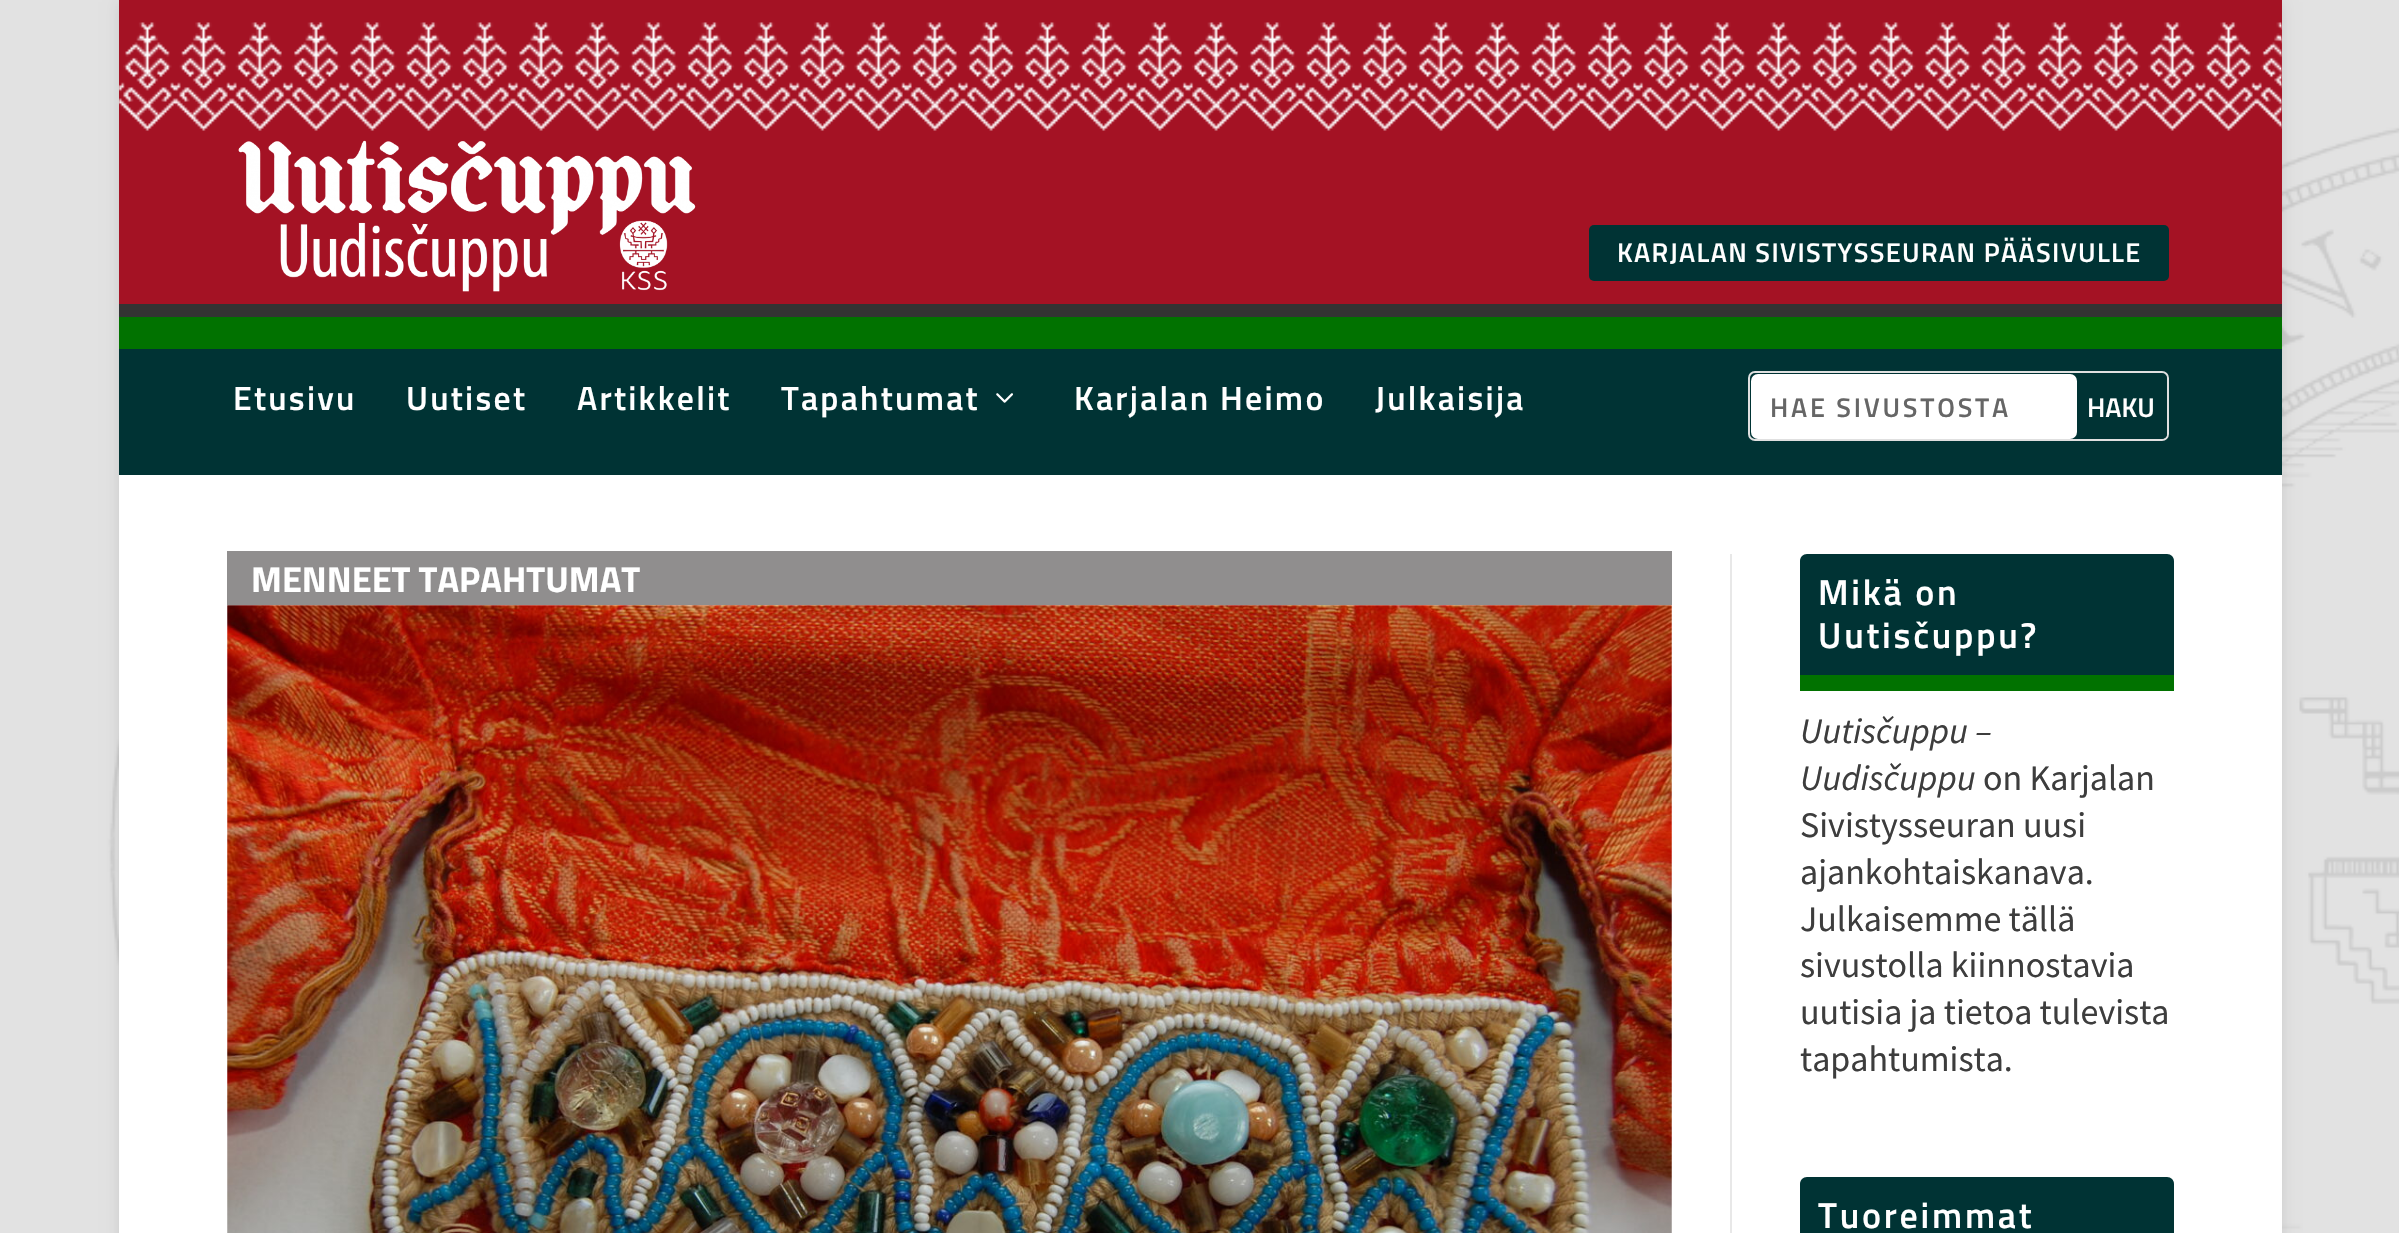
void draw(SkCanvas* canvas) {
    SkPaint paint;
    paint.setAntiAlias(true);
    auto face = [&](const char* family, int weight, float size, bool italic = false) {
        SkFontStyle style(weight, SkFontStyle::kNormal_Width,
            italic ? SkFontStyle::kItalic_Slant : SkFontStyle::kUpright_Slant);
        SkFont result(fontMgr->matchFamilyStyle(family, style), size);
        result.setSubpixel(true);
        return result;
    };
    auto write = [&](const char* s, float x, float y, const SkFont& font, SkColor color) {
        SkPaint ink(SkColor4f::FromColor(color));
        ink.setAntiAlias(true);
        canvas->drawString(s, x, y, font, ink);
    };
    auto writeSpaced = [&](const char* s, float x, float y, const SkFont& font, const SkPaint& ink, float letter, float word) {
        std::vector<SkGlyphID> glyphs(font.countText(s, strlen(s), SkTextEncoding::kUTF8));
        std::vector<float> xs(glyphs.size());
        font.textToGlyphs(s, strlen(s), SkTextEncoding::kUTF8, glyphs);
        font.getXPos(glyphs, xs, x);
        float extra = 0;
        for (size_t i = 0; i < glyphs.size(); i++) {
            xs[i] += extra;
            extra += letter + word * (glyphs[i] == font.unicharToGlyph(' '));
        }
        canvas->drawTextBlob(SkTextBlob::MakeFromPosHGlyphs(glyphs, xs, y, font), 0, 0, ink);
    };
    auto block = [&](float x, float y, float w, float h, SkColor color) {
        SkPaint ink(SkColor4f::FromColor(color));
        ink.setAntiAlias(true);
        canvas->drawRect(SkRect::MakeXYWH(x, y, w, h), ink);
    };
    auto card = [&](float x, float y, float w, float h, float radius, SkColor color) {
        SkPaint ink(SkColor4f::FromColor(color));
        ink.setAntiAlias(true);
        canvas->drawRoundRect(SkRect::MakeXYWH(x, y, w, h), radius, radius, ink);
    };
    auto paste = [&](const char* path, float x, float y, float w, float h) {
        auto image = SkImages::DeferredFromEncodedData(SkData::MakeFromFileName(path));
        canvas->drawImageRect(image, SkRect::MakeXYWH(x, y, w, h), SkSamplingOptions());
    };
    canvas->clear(SK_ColorWHITE);
    paste("pic1.png", 0, 0, 2399, 1233);
    paint.setColor(SkColorSetARGB(26, 0, 0, 0));
    paint.setMaskFilter(SkMaskFilter::MakeBlur(kNormal_SkBlurStyle, 7));
    canvas->drawRect(SkRect::MakeXYWH(119, 2, 2163, 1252), paint);
    paint.setMaskFilter(nullptr);
    block(119, 0, 2163, 304, SkColorSetRGB(164, 18, 36));
    paste("pic2.png", 119, 22, 2163, 109);
    block(119, 304, 2163, 13, SkColorSetRGB(51, 51, 51));
    paste("pic3.png", 238, 140, 458, 152);
    card(1589, 225, 580, 56, 5, SkColorSetRGB(0, 51, 52));
    auto kFont1 = face("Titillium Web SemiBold", 600, 27);
    paint.setColor(SK_ColorWHITE);
    writeSpaced("KARJALAN SIVISTYSSEURAN PÄÄSIVULLE", 1617, 262, kFont1, paint, 1.35f, 0);
    block(119, 349, 2163, 126, SkColorSetRGB(0, 51, 52));
    block(119, 317, 2163, 32, SkColorSetRGB(1, 114, 0));
    auto kFont2 = face("Titillium Web SemiBold", 600, 33.75f);
    writeSpaced("Etusivu", 233, 410, kFont2, paint, 2.25f, 0);
    writeSpaced("Uutiset", 406, 410, kFont2, paint, 2.25f, 0);
    writeSpaced("Artikkelit", 577, 410, kFont2, paint, 2.25f, 0);
    writeSpaced("Tapahtumat", 781, 410, kFont2, paint, 2.25f, 0);
    paste("pic4.png", 996, 393, 17, 10);
    writeSpaced("Karjalan Heimo", 1074, 410, kFont2, paint, 2.25f, 0);
    writeSpaced("Julkaisija", 1375, 410, kFont2, paint, 2.25f, 0);
    paint.setStyle(SkPaint::kStroke_Style);
    paint.setStrokeWidth(2);
    paint.setColor(SkColorSetRGB(224, 224, 224));
    canvas->drawRoundRect(SkRect::MakeXYWH(1749, 372, 419, 68), 6, 6, paint);
    card(1751, 374, 326, 65, 7, SK_ColorWHITE);
    paint.setStyle(SkPaint::kFill_Style);
    paint.setColor(SkColorSetRGB(102, 102, 102));
    writeSpaced("HAE SIVUSTOSTA", 1770, 417, kFont1, paint, 2.75f, 0);
    card(2077, 374, 90, 65, 5, SkColorSetRGB(0, 51, 52));
    write("HAKU", 2087, 417, kFont1, SK_ColorWHITE);
    block(119, 475, 2163, 758, SK_ColorWHITE);
    block(227, 551, 1445, 54, SkColorSetRGB(144, 142, 142));
    auto kFont3 = face("Titillium Web", 700, 36);
    write("MENNEET TAPAHTUMAT", 251, 592, kFont3, SK_ColorWHITE);
    paste("pic5.png", 227, 605, 1445, 628);
    block(1730, 554, 2, 679, SkColorSetRGB(232, 232, 232));
    paint.setColor(SkColorSetRGB(0, 51, 52));
    canvas->drawPath(SkPathBuilder().moveTo(1807, 554).lineTo(2167, 554).cubicTo(2171, 554, 2174, 557, 2174, 561).lineTo(2174, 691).lineTo(1800, 691).lineTo(1800, 561).cubicTo(1800, 557, 1803, 554, 1807, 554).close().detach(), paint);
    block(1800, 675, 374, 16, SkColorSetRGB(1, 114, 0));
    auto kFont4 = face("Titillium Web SemiBold", 600, 36);
    paint.setColor(SK_ColorWHITE);
    writeSpaced("Mikä on", 1818, 605, kFont4, paint, 2.75f, 0);
    writeSpaced("Uutisčuppu?", 1818, 648, kFont4, paint, 2.75f, 0);
    auto kFont5 = face("Source Sans Pro", 400, 36, true);
    write("Uutisčuppu –", 1800, 743, kFont5, SkColorSetRGB(61, 61, 61));
    write("Uudisčuppu", 1800, 790, kFont5, SkColorSetRGB(61, 61, 61));
    auto kFont6 = face("Source Sans Pro", 400, 36);
    write("on Karjalan", 1983, 790, kFont6, SkColorSetRGB(61, 61, 61));
    write("Sivistysseuran uusi", 1800, 837, kFont6, SkColorSetRGB(61, 61, 61));
    write("ajankohtaiskanava.", 1800, 884, kFont6, SkColorSetRGB(61, 61, 61));
    write("Julkaisemme tällä", 1800, 931, kFont6, SkColorSetRGB(61, 61, 61));
    write("sivustolla kiinnostavia", 1800, 977, kFont6, SkColorSetRGB(61, 61, 61));
    write("uutisia ja tietoa tulevista", 1800, 1024, kFont6, SkColorSetRGB(61, 61, 61));
    write("tapahtumista.", 1800, 1071, kFont6, SkColorSetRGB(61, 61, 61));
    paint.setColor(SkColorSetRGB(0, 51, 52));
    canvas->drawPath(SkPathBuilder().moveTo(1807, 1177).lineTo(2167, 1177).cubicTo(2171, 1177, 2174, 1180, 2174, 1184).lineTo(2174, 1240).lineTo(1800, 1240).lineTo(1800, 1184).cubicTo(1800, 1180, 1803, 1177, 1807, 1177).close().detach(), paint);
    paint.setColor(SK_ColorWHITE);
    writeSpaced("Tuoreimmat", 1818, 1228, kFont4, paint, 2.75f, 0);
}
